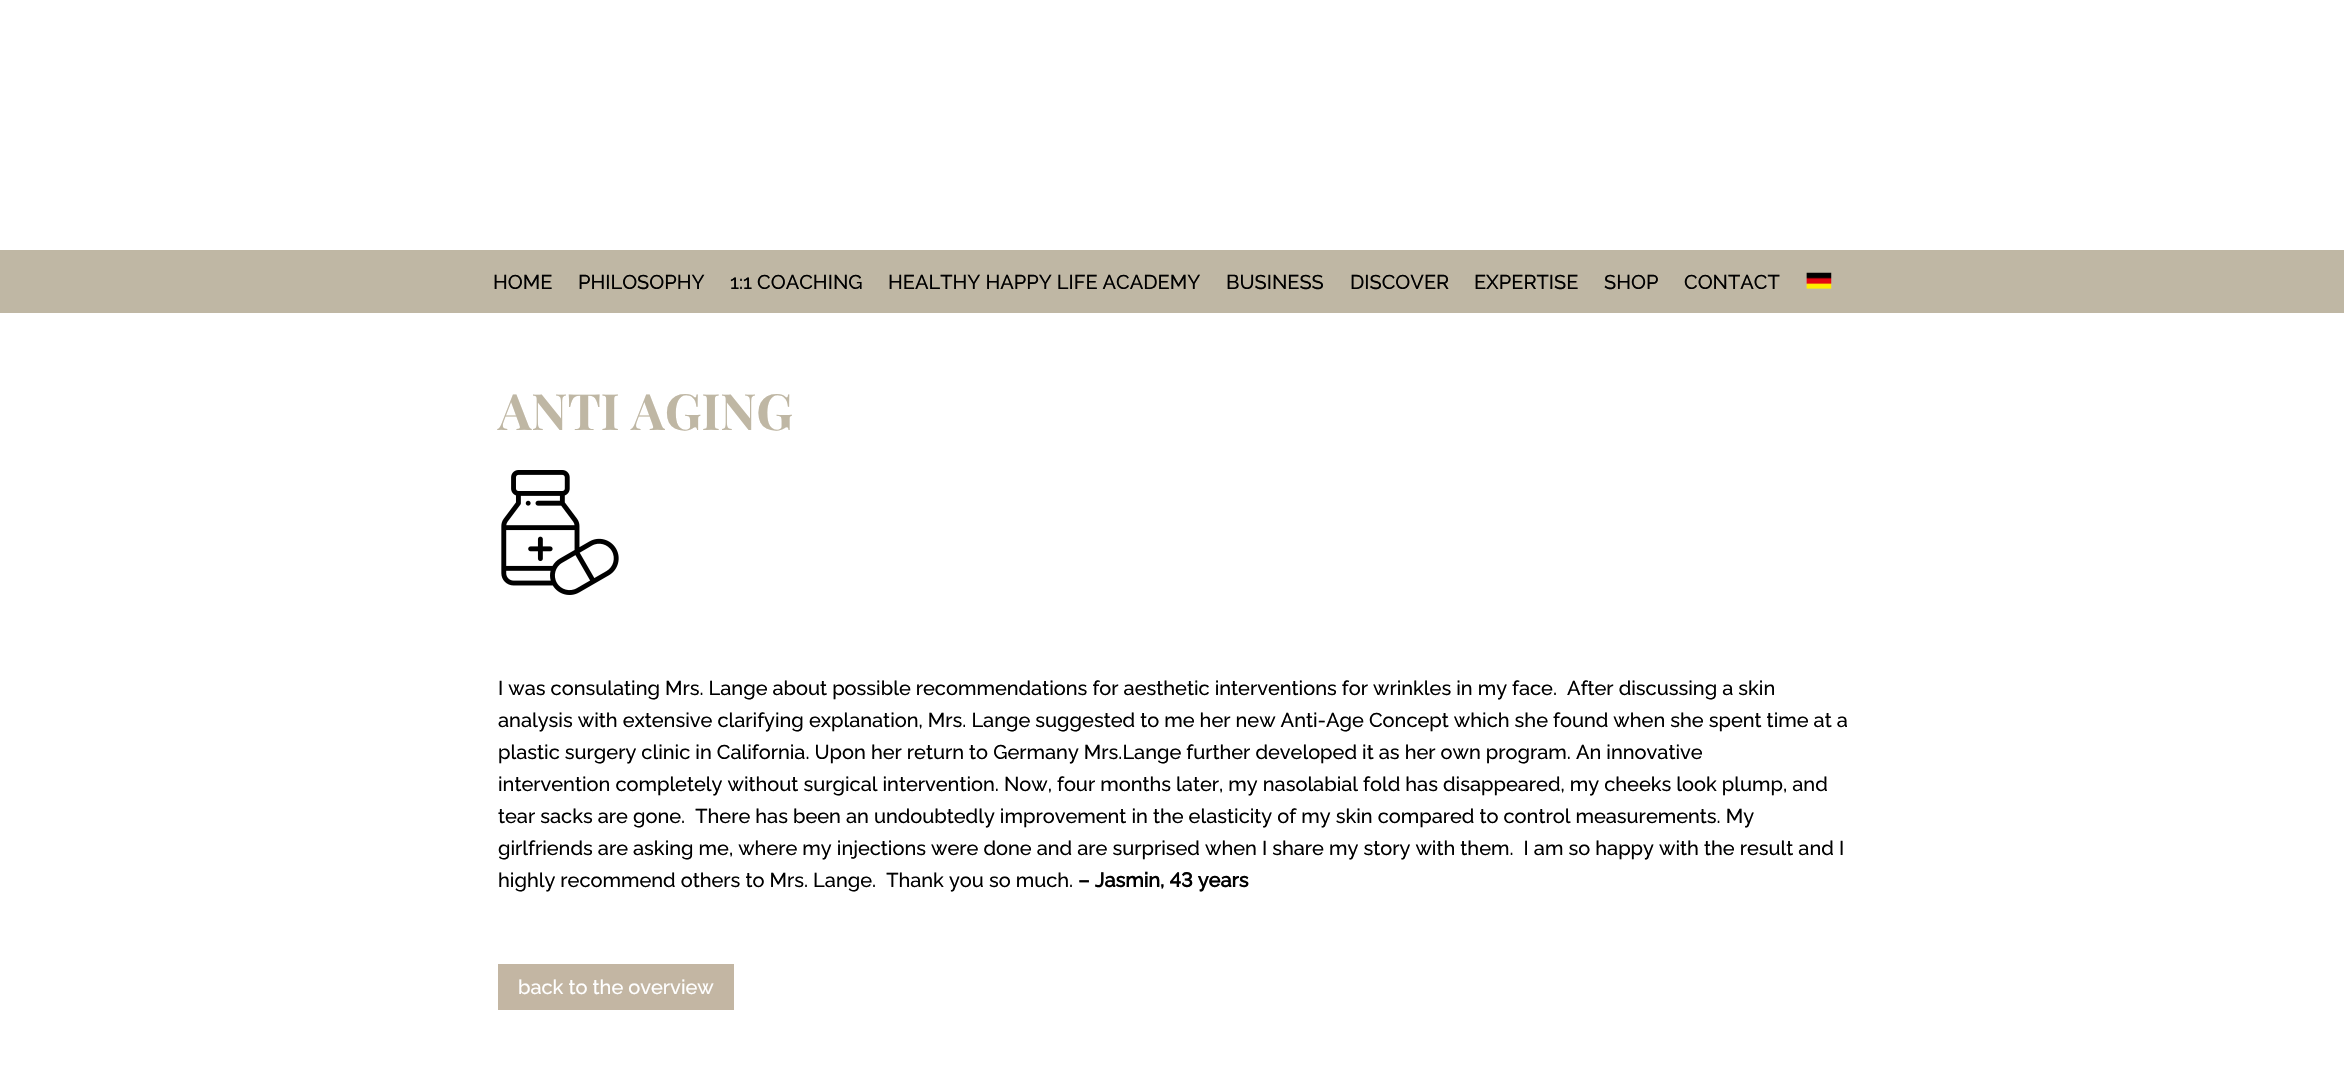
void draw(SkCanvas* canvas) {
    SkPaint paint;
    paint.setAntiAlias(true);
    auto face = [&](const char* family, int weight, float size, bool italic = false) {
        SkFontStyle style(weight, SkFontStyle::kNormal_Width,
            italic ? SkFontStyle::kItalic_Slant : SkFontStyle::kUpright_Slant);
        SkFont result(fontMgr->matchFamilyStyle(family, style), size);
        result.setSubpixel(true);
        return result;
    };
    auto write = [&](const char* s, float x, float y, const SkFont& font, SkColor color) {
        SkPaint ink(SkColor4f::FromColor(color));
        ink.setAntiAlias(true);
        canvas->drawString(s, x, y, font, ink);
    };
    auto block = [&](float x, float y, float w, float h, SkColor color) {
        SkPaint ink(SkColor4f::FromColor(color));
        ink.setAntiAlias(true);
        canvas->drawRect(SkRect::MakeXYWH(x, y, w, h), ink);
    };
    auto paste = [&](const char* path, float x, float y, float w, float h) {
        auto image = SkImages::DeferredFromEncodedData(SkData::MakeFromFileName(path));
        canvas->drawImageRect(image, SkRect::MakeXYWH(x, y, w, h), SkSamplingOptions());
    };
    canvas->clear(SK_ColorWHITE);
    block(0, 250, 2344, 63, SkColorSetRGB(191, 183, 164));
    auto kFont1 = face("Raleway", 500, 20);
    write("HOME", 493, 289, kFont1, SK_ColorBLACK);
    write("PHILOSOPHY", 578, 289, kFont1, SK_ColorBLACK);
    write("1:1 COACHING", 730, 289, kFont1, SK_ColorBLACK);
    write("HEALTHY HAPPY LIFE ACADEMY", 888, 289, kFont1, SK_ColorBLACK);
    write("BUSINESS", 1226, 289, kFont1, SK_ColorBLACK);
    write("DISCOVER", 1350, 289, kFont1, SK_ColorBLACK);
    write("EXPERTISE", 1474, 289, kFont1, SK_ColorBLACK);
    write("SHOP", 1604, 289, kFont1, SK_ColorBLACK);
    write("CONTACT", 1684, 289, kFont1, SK_ColorBLACK);
    paste("pic1.png", 1806, 272, 26, 17);
    auto kFont2 = face("Playfair Display", 700, 50);
    write("ANTI AGING", 498, 430, kFont2, SkColorSetRGB(191, 183, 164));
    paste("pic2.png", 501, 470, 118, 125);
    write("I was consulating Mrs. Lange about possible recommendations for aesthetic interventions for wrinkles in my face.  After discussing a skin", 498, 695, kFont1, SK_ColorBLACK);
    write("analysis with extensive clarifying explanation, Mrs. Lange suggested to me her new Anti-Age Concept which she found when she spent time at a", 498, 727, kFont1, SK_ColorBLACK);
    write("plastic surgery clinic in California. Upon her return to Germany Mrs.Lange further developed it as her own program. An innovative", 498, 759, kFont1, SK_ColorBLACK);
    write("intervention completely without surgical intervention. Now, four months later, my nasolabial fold has disappeared, my cheeks look plump, and", 498, 791, kFont1, SK_ColorBLACK);
    write("tear sacks are gone.  There has been an undoubtedly improvement in the elasticity of my skin compared to control measurements. My", 498, 823, kFont1, SK_ColorBLACK);
    write("girlfriends are asking me, where my injections were done and are surprised when I share my story with them.  I am so happy with the result and I", 498, 855, kFont1, SK_ColorBLACK);
    write("highly recommend others to Mrs. Lange.  Thank you so much.", 498, 887, kFont1, SK_ColorBLACK);
    auto kFont3 = face("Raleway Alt", 700, 20);
    write("– Jasmin, 43 years", 1078, 887, kFont3, SK_ColorBLACK);
    block(498, 964, 236, 46, SkColorSetRGB(195, 182, 163));
    write("back to the overview", 518, 994, kFont1, SK_ColorWHITE);
}
